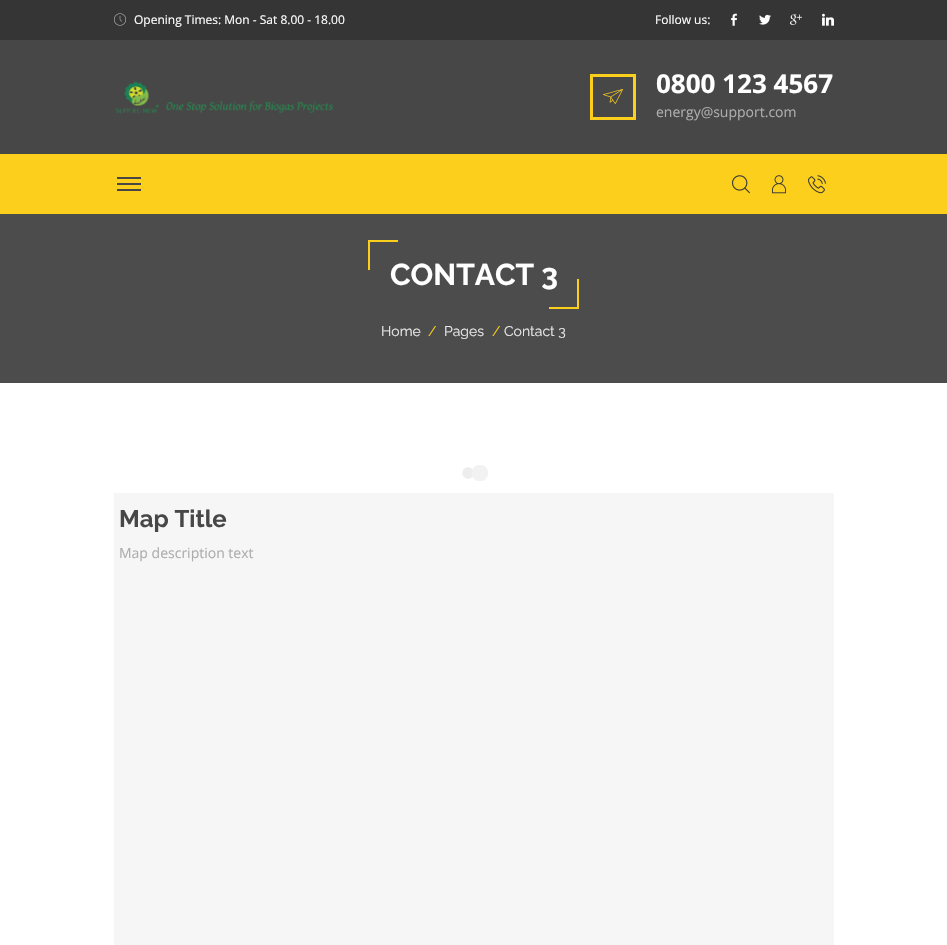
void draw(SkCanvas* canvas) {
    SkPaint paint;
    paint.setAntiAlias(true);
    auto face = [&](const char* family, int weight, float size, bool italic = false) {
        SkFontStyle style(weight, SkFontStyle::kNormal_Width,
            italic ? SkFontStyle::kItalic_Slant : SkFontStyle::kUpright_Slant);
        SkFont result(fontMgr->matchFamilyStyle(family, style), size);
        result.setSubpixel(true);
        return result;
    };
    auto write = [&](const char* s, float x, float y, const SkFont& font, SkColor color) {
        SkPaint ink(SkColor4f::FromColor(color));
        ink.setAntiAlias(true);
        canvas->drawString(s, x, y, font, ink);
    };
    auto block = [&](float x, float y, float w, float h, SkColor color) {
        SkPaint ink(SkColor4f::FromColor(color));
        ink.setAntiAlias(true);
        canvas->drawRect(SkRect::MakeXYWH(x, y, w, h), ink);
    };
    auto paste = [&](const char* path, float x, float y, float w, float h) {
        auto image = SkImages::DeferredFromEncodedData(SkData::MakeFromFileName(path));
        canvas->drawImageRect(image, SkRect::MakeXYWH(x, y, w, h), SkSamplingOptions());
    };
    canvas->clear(SK_ColorWHITE);
    block(0, 0, 947, 40, SkColorSetRGB(53, 53, 53));
    paste("pic1.png", 114, 13, 12, 13);
    auto kFont1 = face("Open Sans", 400, 12);
    write("Opening Times: Mon - Sat 8.00 - 18.00", 134, 24, kFont1, SK_ColorWHITE);
    write("Follow us:", 655, 24, kFont1, SK_ColorWHITE);
    paste("pic2.png", 731, 13, 6, 13);
    paste("pic3.png", 759, 14, 12, 11);
    paste("pic4.png", 790, 14, 12, 11);
    paste("pic5.png", 822, 13, 12, 13);
    block(0, 40, 947, 114, SkColorSetRGB(71, 71, 71));
    paste("pic6.png", 116, 81, 217, 33);
    paint.setStyle(SkPaint::kStroke_Style);
    paint.setStrokeWidth(3);
    paint.setColor(SkColorSetRGB(252, 207, 28));
    canvas->drawRect(SkRect::MakeXYWH(591.5f, 75.5f, 43, 43), paint);
    paste("pic7.png", 603, 89, 20, 15);
    auto kFont2 = face("Open Sans", 700, 26);
    write("0800 123 4567", 656, 93, kFont2, SK_ColorWHITE);
    auto kFont3 = face("Open Sans", 400, 14);
    write("energy@support.com", 656, 117, kFont3, SkColorSetRGB(173, 173, 173));
    block(0, 154, 947, 60, SkColorSetRGB(252, 207, 28));
    block(117, 183, 24, 2, SkColorSetRGB(71, 71, 71));
    block(117, 177, 24, 2, SkColorSetRGB(71, 71, 71));
    block(117, 189, 24, 2, SkColorSetRGB(71, 71, 71));
    paste("pic8.png", 732, 175, 18, 19);
    paste("pic9.png", 771, 175, 16, 19);
    paste("pic10.png", 808, 175, 18, 19);
    block(0, 214, 947, 169, SkColorSetRGB(76, 76, 76));
    block(368, 240, 30, 2, SkColorSetRGB(252, 207, 28));
    block(368, 240, 2, 30, SkColorSetRGB(252, 207, 28));
    auto kFont4 = face("Raleway", 700, 30);
    write("CONTACT 3", 390, 285, kFont4, SK_ColorWHITE);
    block(577, 279, 2, 30, SkColorSetRGB(252, 207, 28));
    block(549, 307, 30, 2, SkColorSetRGB(252, 207, 28));
    auto kFont5 = face("Raleway", 400, 14);
    write("Home", 381, 336, kFont5, SkColorSetRGB(233, 231, 231));
    write("/", 428, 336, kFont5, SkColorSetRGB(252, 207, 28));
    write("Pages", 444, 336, kFont5, SkColorSetRGB(233, 231, 231));
    write("/", 492, 336, kFont5, SkColorSetRGB(252, 207, 28));
    write("Contact 3", 504, 336, kFont5, SkColorSetRGB(233, 231, 231));
    block(114, 493, 720, 452, SkColorSetRGB(246, 246, 246));
    auto kFont6 = face("Raleway", 700, 24);
    write("Map Title", 119, 527, kFont6, SkColorSetRGB(71, 71, 71));
    write("Map description text", 119, 558, kFont3, SkColorSetRGB(173, 173, 173));
    paste("pic11.png", 462, 465, 26, 16);
}
